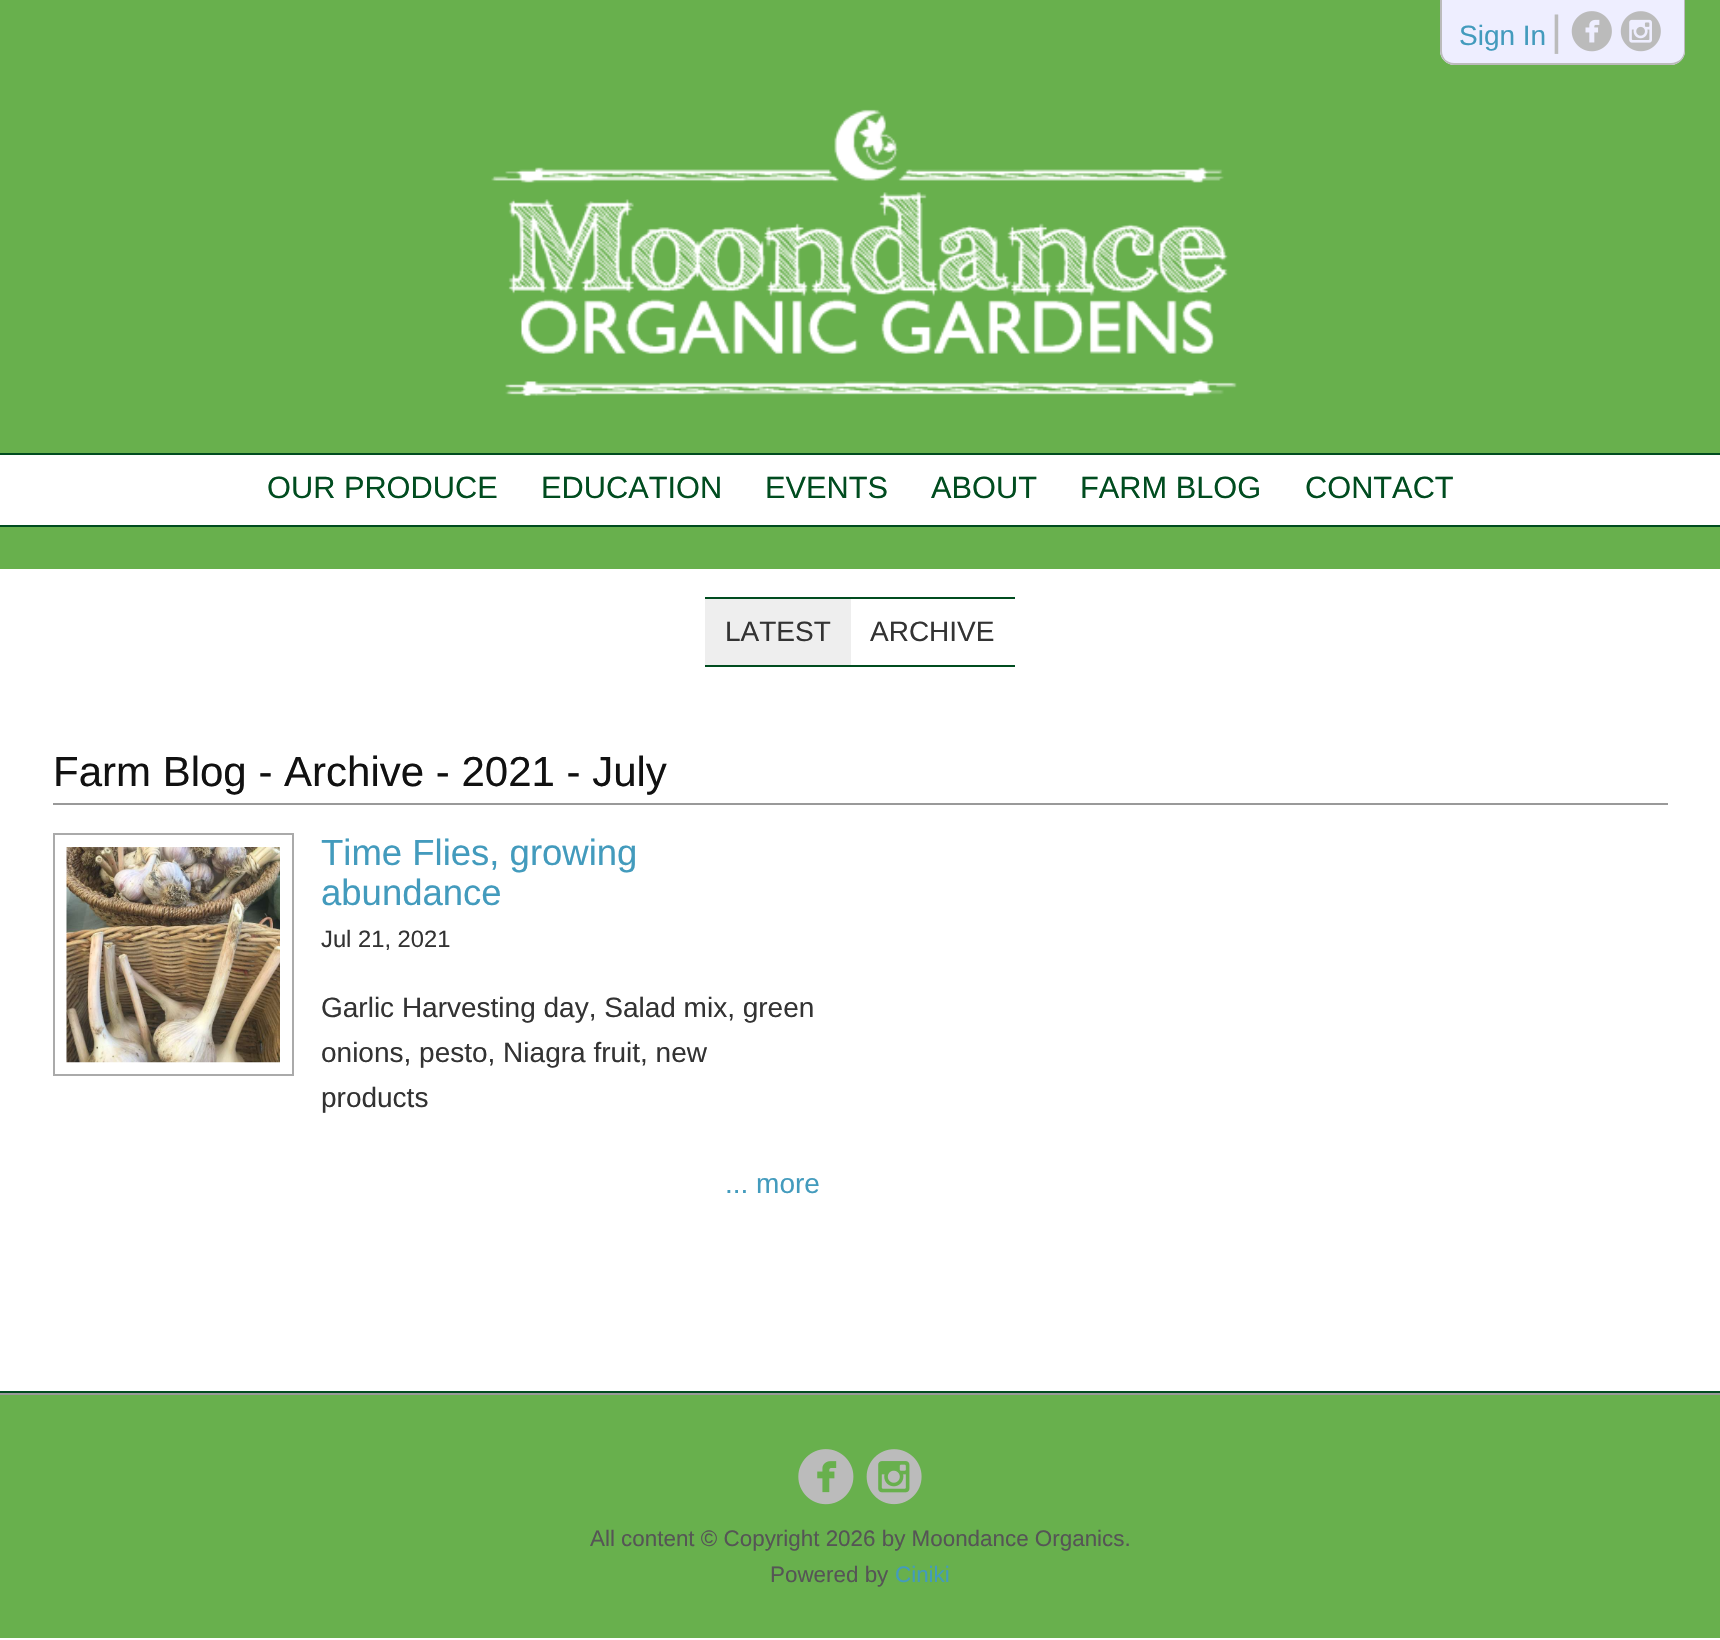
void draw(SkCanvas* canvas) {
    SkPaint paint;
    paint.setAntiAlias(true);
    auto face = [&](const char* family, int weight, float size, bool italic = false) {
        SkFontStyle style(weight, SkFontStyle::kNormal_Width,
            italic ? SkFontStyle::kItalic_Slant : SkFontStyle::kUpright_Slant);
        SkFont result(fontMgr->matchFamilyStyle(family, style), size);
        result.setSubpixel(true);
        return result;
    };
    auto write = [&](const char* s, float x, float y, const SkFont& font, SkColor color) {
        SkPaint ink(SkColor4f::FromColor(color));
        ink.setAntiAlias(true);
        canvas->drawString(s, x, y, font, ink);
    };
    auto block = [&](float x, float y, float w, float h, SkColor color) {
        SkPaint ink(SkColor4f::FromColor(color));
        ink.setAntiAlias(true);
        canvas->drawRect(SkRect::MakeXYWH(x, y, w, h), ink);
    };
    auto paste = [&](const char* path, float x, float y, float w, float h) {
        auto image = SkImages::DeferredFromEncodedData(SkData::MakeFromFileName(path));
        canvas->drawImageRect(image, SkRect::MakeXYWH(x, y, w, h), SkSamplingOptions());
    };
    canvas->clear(SK_ColorWHITE);
    block(0, 0, 1720, 453, SkColorSetRGB(104, 176, 77));
    paint.setColor(SkColorSetRGB(238, 238, 255));
    canvas->drawPath(SkPathBuilder().moveTo(1440, 0).lineTo(1685, 0).lineTo(1685, 51).cubicTo(1685, 58.5f, 1678.5f, 65, 1671, 65).lineTo(1454, 65).cubicTo(1446.5f, 65, 1440, 58.5f, 1440, 51).close().detach(), paint);
    paint.setColor(SkColorSetRGB(187, 187, 187));
    canvas->drawPath(SkPathBuilder(SkPathFillType::kEvenOdd).moveTo(1440, 0).lineTo(1685, 0).lineTo(1685, 51).cubicTo(1685, 58, 1679, 65, 1671, 65).lineTo(1454, 65).cubicTo(1447, 65, 1440, 58, 1440, 51).close().moveTo(1442, 0).lineTo(1684, 0).lineTo(1684, 51).cubicTo(1684, 58, 1678, 63, 1671, 63).lineTo(1454, 63).cubicTo(1447, 63, 1442, 58, 1442, 51).close().detach(), paint);
    auto kFont1 = face("Liberation Sans", 400, 28);
    write("Sign In", 1459, 45, kFont1, SkColorSetRGB(67, 155, 189));
    auto kFont2 = face("Liberation Sans", 400, 42);
    write("|", 1551, 45, kFont2, SkColorSetRGB(187, 187, 187));
    paste("pic1.png", 1571, 11, 41, 41);
    paste("pic2.png", 1620, 11, 41, 41);
    paste("pic3.png", 491, 109, 746, 288);
    block(0, 453, 1720, 2, SkColorSetRGB(0, 76, 31));
    auto kFont3 = face("Liberation Sans", 400, 30.75f);
    write("OUR PRODUCE", 267, 498, kFont3, SkColorSetRGB(0, 76, 31));
    write("EDUCATION", 541, 498, kFont3, SkColorSetRGB(0, 76, 31));
    write("EVENTS", 765, 498, kFont3, SkColorSetRGB(0, 76, 31));
    write("ABOUT", 931, 498, kFont3, SkColorSetRGB(0, 76, 31));
    write("FARM BLOG", 1080, 498, kFont3, SkColorSetRGB(0, 76, 31));
    write("CONTACT", 1305, 498, kFont3, SkColorSetRGB(0, 76, 31));
    block(0, 527, 1720, 42, SkColorSetRGB(104, 176, 77));
    block(0, 525, 1720, 2, SkColorSetRGB(0, 76, 31));
    block(705, 599, 146, 66, SkColorSetRGB(238, 238, 238));
    block(705, 597, 310, 2, SkColorSetRGB(0, 76, 31));
    block(705, 665, 310, 2, SkColorSetRGB(0, 76, 31));
    write("LATEST", 725, 641, kFont1, SkColorSetRGB(51, 51, 51));
    write("ARCHIVE", 870, 641, kFont1, SkColorSetRGB(51, 51, 51));
    block(53, 803, 1615, 2, SkColorSetRGB(153, 153, 153));
    write("Farm Blog - Archive - 2021 - July", 53, 786, kFont2, SkColorSetRGB(17, 17, 17));
    paint.setStyle(SkPaint::kStroke_Style);
    paint.setStrokeWidth(2);
    paint.setColor(SkColorSetRGB(170, 170, 170));
    canvas->drawRect(SkRect::MakeXYWH(54, 834, 239, 241), paint);
    paste("pic4.png", 66, 847, 214, 216);
    auto kFont4 = face("Liberation Sans", 400, 36.5f);
    write("Time Flies, growing", 321, 865, kFont4, SkColorSetRGB(67, 155, 189));
    write("abundance", 321, 905, kFont4, SkColorSetRGB(67, 155, 189));
    auto kFont5 = face("Liberation Sans", 400, 23.75f);
    write("Jul 21, 2021", 321, 947, kFont5, SkColorSetRGB(51, 51, 51));
    write("Garlic Harvesting day, Salad mix, green", 321, 1017, kFont1, SkColorSetRGB(51, 51, 51));
    write("onions, pesto, Niagra fruit, new", 321, 1062, kFont1, SkColorSetRGB(51, 51, 51));
    write("products", 321, 1107, kFont1, SkColorSetRGB(51, 51, 51));
    write("... more", 725, 1193, kFont1, SkColorSetRGB(67, 155, 189));
    block(0, 1391, 1720, 2, SkColorSetRGB(0, 76, 31));
    block(0, 1395, 1720, 243, SkColorSetRGB(104, 176, 77));
    block(0, 1393, 1720, 2, SkColorSetRGB(153, 153, 153));
    paste("pic5.png", 798, 1449, 56, 56);
    paste("pic6.png", 866, 1449, 56, 56);
    auto kFont6 = face("Liberation Sans", 400, 22.4f);
    write("All content © Copyright 2026 by Moondance Organics.", 590, 1546, kFont6, SkColorSetRGB(85, 85, 85));
    write("Powered by", 770, 1582, kFont6, SkColorSetRGB(85, 85, 85));
    write("Ciniki", 895, 1582, kFont6, SkColorSetRGB(67, 155, 189));
}
